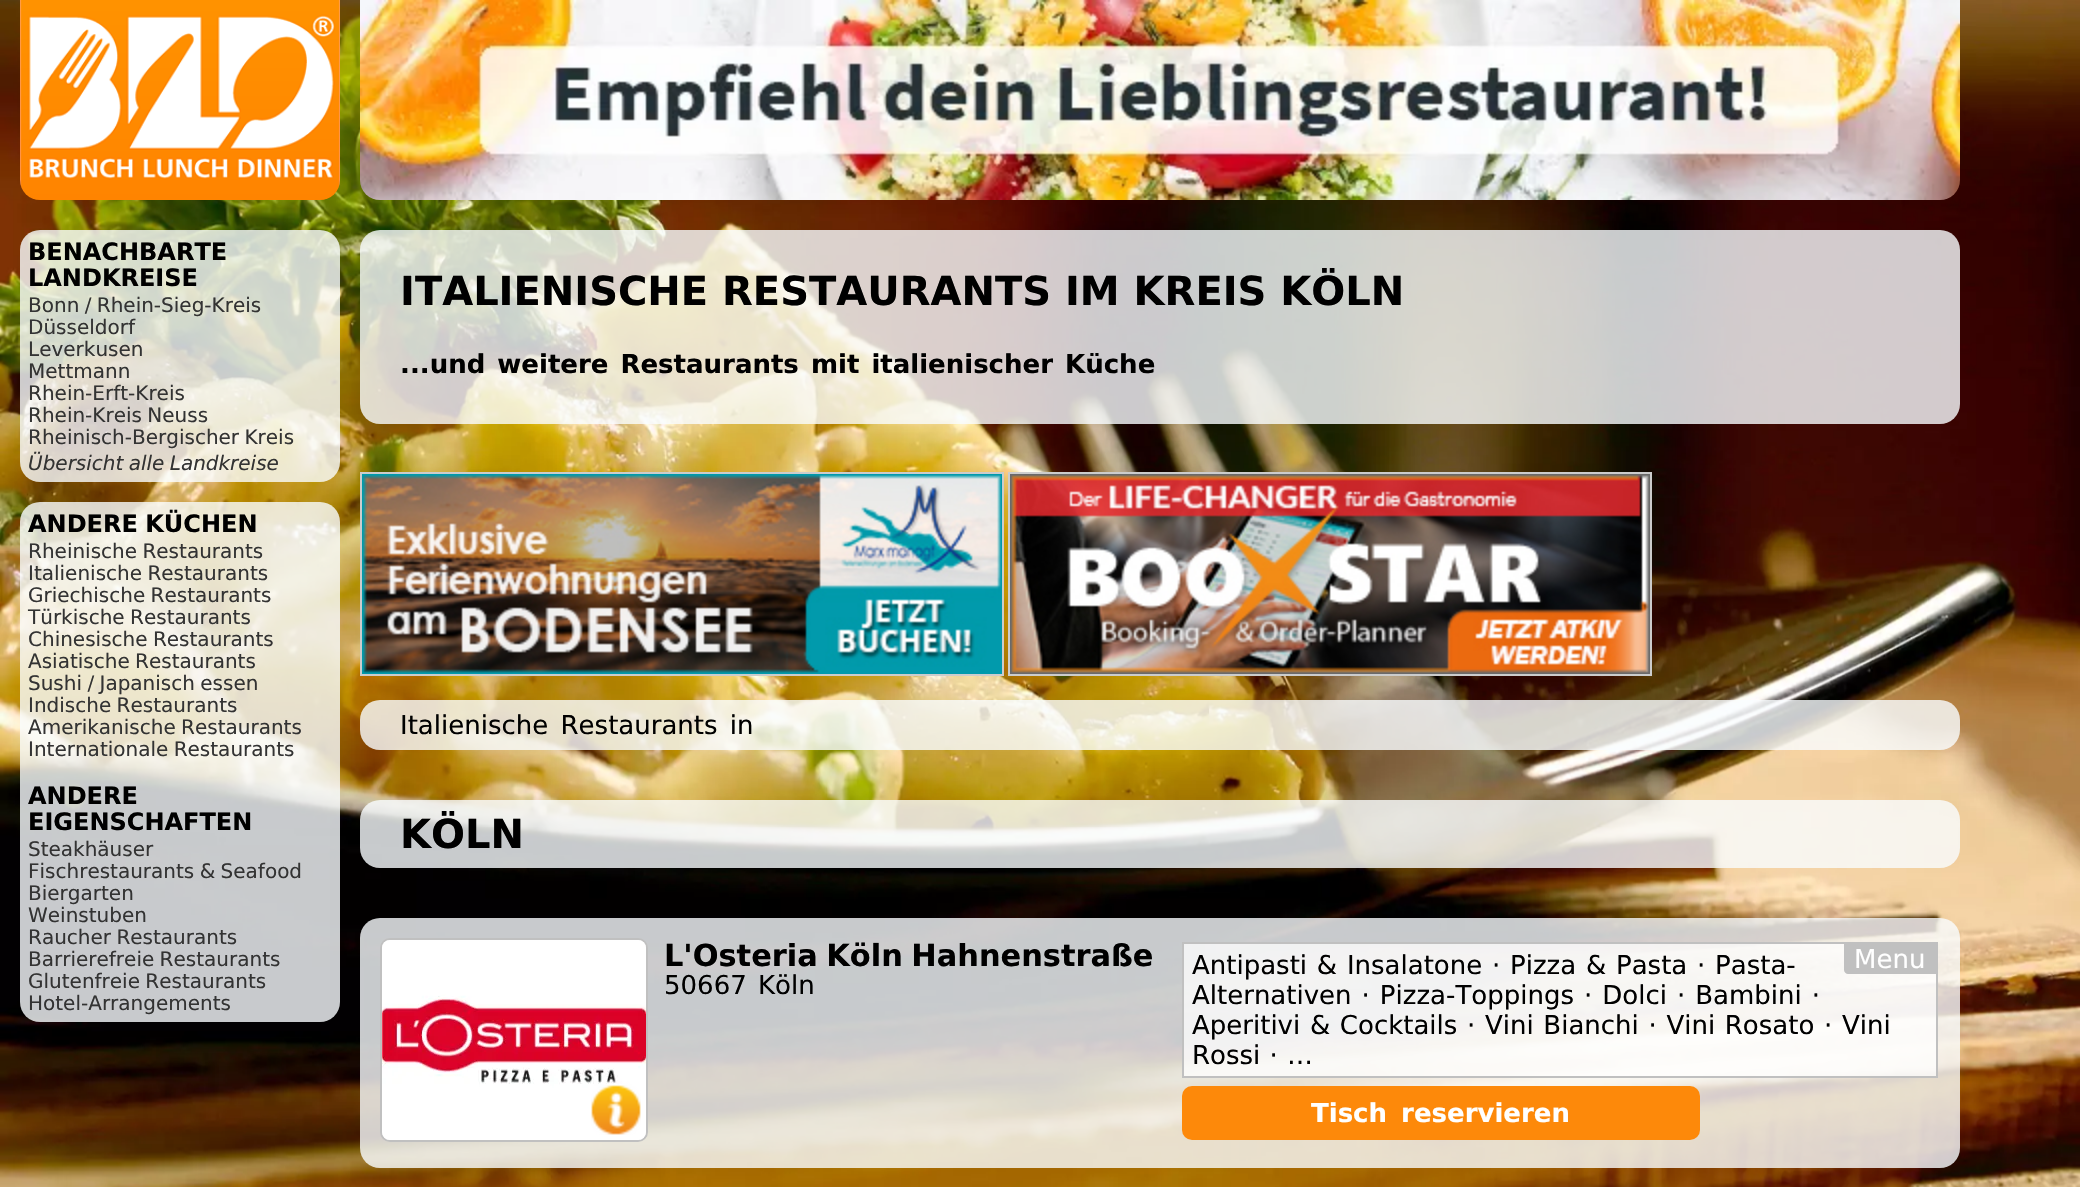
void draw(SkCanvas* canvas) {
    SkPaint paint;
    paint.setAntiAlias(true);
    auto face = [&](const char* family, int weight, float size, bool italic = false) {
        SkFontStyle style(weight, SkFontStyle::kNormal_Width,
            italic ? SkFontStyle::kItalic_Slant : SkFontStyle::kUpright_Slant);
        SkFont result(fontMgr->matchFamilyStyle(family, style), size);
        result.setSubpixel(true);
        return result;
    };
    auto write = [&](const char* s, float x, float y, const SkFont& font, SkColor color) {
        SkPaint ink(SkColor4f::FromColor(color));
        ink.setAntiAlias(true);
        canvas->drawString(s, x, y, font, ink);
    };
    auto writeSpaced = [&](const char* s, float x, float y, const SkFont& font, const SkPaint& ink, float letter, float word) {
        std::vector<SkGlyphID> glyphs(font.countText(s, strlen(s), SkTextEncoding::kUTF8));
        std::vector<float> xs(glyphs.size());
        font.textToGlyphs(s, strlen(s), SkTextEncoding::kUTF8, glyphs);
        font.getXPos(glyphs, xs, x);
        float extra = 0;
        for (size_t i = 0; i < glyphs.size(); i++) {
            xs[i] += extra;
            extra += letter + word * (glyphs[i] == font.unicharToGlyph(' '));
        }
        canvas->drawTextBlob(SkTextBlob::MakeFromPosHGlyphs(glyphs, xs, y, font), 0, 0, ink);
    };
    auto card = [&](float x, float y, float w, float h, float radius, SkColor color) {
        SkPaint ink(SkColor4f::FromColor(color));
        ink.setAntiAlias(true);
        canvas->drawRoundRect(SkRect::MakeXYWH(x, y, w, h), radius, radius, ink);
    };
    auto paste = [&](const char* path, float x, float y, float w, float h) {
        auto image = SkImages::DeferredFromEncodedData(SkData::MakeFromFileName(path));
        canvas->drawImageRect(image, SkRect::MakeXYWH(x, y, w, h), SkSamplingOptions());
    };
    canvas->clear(SK_ColorWHITE);
    paste("pic1.png", 0, 0, 2080, 1187);
    paste("pic2.png", 20, 0, 320, 200);
    paste("pic3.png", 360, 0, 1600, 200);
    card(20, 230, 320, 252, 20, SkColorSetARGB(204, 249, 252, 255));
    auto kFont1 = face("DejaVu Sans", 700, 24);
    write("BENACHBARTE", 28, 260, kFont1, SK_ColorBLACK);
    write("LANDKREISE", 28, 286, kFont1, SK_ColorBLACK);
    auto kFont2 = face("DejaVu Sans", 400, 20);
    paint.setColor(SkColorSetRGB(51, 51, 51));
    writeSpaced("Bonn / Rhein-Sieg-Kreis", 28, 312, kFont2, paint, 0, -1);
    write("Düsseldorf", 28, 334, kFont2, SkColorSetRGB(51, 51, 51));
    write("Leverkusen", 28, 356, kFont2, SkColorSetRGB(51, 51, 51));
    write("Mettmann", 28, 378, kFont2, SkColorSetRGB(51, 51, 51));
    write("Rhein-Erft-Kreis", 28, 400, kFont2, SkColorSetRGB(51, 51, 51));
    writeSpaced("Rhein-Kreis Neuss", 28, 422, kFont2, paint, 0, -1);
    writeSpaced("Rheinisch-Bergischer Kreis", 28, 444, kFont2, paint, 0, -1);
    auto kFont3 = face("DejaVu Sans", 400, 20, true);
    writeSpaced("Übersicht alle Landkreise", 28, 470, kFont3, paint, 0, -1);
    card(20, 502, 320, 520, 20, SkColorSetARGB(204, 249, 252, 255));
    paint.setColor(SK_ColorBLACK);
    writeSpaced("ANDERE KÜCHEN", 28, 532, kFont1, paint, 0, -1);
    paint.setColor(SkColorSetRGB(51, 51, 51));
    writeSpaced("Rheinische Restaurants", 28, 558, kFont2, paint, 0, -1);
    writeSpaced("Italienische Restaurants", 28, 580, kFont2, paint, 0, -1);
    writeSpaced("Griechische Restaurants", 28, 602, kFont2, paint, 0, -1);
    writeSpaced("Türkische Restaurants", 28, 624, kFont2, paint, 0, -1);
    writeSpaced("Chinesische Restaurants", 28, 646, kFont2, paint, 0, -1);
    writeSpaced("Asiatische Restaurants", 28, 668, kFont2, paint, 0, -1);
    writeSpaced("Sushi / Japanisch essen", 28, 690, kFont2, paint, 0, -1);
    writeSpaced("Indische Restaurants", 28, 712, kFont2, paint, 0, -1);
    writeSpaced("Amerikanische Restaurants", 28, 734, kFont2, paint, 0, -1);
    writeSpaced("Internationale Restaurants", 28, 756, kFont2, paint, 0, -1);
    write("ANDERE", 28, 804, kFont1, SK_ColorBLACK);
    write("EIGENSCHAFTEN", 28, 830, kFont1, SK_ColorBLACK);
    write("Steakhäuser", 28, 856, kFont2, SkColorSetRGB(51, 51, 51));
    writeSpaced("Fischrestaurants & Seafood", 28, 878, kFont2, paint, 0, -1);
    write("Biergarten", 28, 900, kFont2, SkColorSetRGB(51, 51, 51));
    write("Weinstuben", 28, 922, kFont2, SkColorSetRGB(51, 51, 51));
    writeSpaced("Raucher Restaurants", 28, 944, kFont2, paint, 0, -1);
    writeSpaced("Barrierefreie Restaurants", 28, 966, kFont2, paint, 0, -1);
    writeSpaced("Glutenfreie Restaurants", 28, 988, kFont2, paint, 0, -1);
    write("Hotel-Arrangements", 28, 1010, kFont2, SkColorSetRGB(51, 51, 51));
    card(360, 230, 1600, 194, 20, SkColorSetARGB(204, 249, 252, 255));
    auto kFont4 = face("DejaVu Sans", 700, 40);
    write("ITALIENISCHE RESTAURANTS IM KREIS KÖLN", 400, 305, kFont4, SK_ColorBLACK);
    auto kFont5 = face("DejaVu Sans", 700, 26);
    paint.setColor(SK_ColorBLACK);
    writeSpaced("...und weitere Restaurants mit italienischer Küche", 400, 373, kFont5, paint, 0, 3);
    paint.setStyle(SkPaint::kStroke_Style);
    paint.setStrokeWidth(2);
    paint.setColor(SkColorSetRGB(204, 204, 204));
    canvas->drawRect(SkRect::MakeXYWH(361, 473, 642, 202), paint);
    paste("pic4.png", 362, 474, 640, 200);
    canvas->drawRect(SkRect::MakeXYWH(1009, 473, 642, 202), paint);
    paste("pic5.png", 1010, 474, 640, 200);
    card(360, 700, 1600, 50, 20, SkColorSetARGB(204, 249, 252, 255));
    auto kFont6 = face("DejaVu Sans", 400, 26);
    paint.setStyle(SkPaint::kFill_Style);
    paint.setColor(SK_ColorBLACK);
    writeSpaced("Italienische Restaurants in", 400, 734, kFont6, paint, 0, 4);
    card(360, 800, 1600, 68, 20, SkColorSetARGB(204, 249, 252, 255));
    write("KÖLN", 400, 848, kFont4, SK_ColorBLACK);
    card(360, 918, 1600, 250, 20, SkColorSetARGB(204, 249, 252, 255));
    paint.setColor(SkColorSetRGB(238, 238, 238));
    canvas->drawRoundRect(SkRect::MakeXYWH(381, 939, 266, 202), 9, 9, paint);
    paint.setStyle(SkPaint::kStroke_Style);
    paint.setColor(SkColorSetRGB(192, 192, 192));
    canvas->drawRoundRect(SkRect::MakeXYWH(381, 939, 266, 202), 9, 9, paint);
    paste("pic6.png", 382, 940, 264, 200);
    paste("pic7.png", 591, 1078, 50, 57);
    auto kFont7 = face("DejaVu Sans", 700, 30.4f);
    paint.setStyle(SkPaint::kFill_Style);
    paint.setColor(SK_ColorBLACK);
    writeSpaced("L'Osteria Köln Hahnenstraße", 664, 966, kFont7, paint, 0, -2);
    writeSpaced("50667 Köln", 664, 994, kFont6, paint, 0, 3);
    paint.setColor(SkColorSetARGB(191, 255, 255, 255));
    canvas->drawRect(SkRect::MakeXYWH(1183, 943, 754, 134), paint);
    paint.setStyle(SkPaint::kStroke_Style);
    paint.setColor(SkColorSetRGB(192, 192, 192));
    canvas->drawRect(SkRect::MakeXYWH(1183, 943, 754, 134), paint);
    paint.setStyle(SkPaint::kFill_Style);
    paint.setColor(SK_ColorBLACK);
    writeSpaced("Antipasti & Insalatone · Pizza & Pasta · Pasta-", 1192, 974, kFont6, paint, 0, 1.5f);
    writeSpaced("Alternativen · Pizza-Toppings · Dolci · Bambini ·", 1192, 1004, kFont6, paint, 0, 1.75f);
    writeSpaced("Aperitivi & Cocktails · Vini Bianchi · Vini Rosato · Vini", 1192, 1034, kFont6, paint, 0, 1.4f);
    writeSpaced("Rossi · …", 1192, 1064, kFont6, paint, 0, 1);
    paint.setColor(SkColorSetRGB(192, 192, 192));
    canvas->drawPath(SkPathBuilder().moveTo(1844, 944).lineTo(1936, 944).lineTo(1936, 974).lineTo(1848, 974).cubicTo(1846, 974, 1844, 972, 1844, 970).close().detach(), paint);
    write("Menu", 1854, 968, kFont6, SK_ColorWHITE);
    card(1182, 1086, 518, 54, 10, SkColorSetRGB(253, 137, 10));
    paint.setColor(SK_ColorWHITE);
    writeSpaced("Tisch reservieren", 1311, 1122, kFont5, paint, 0, 5);
}
